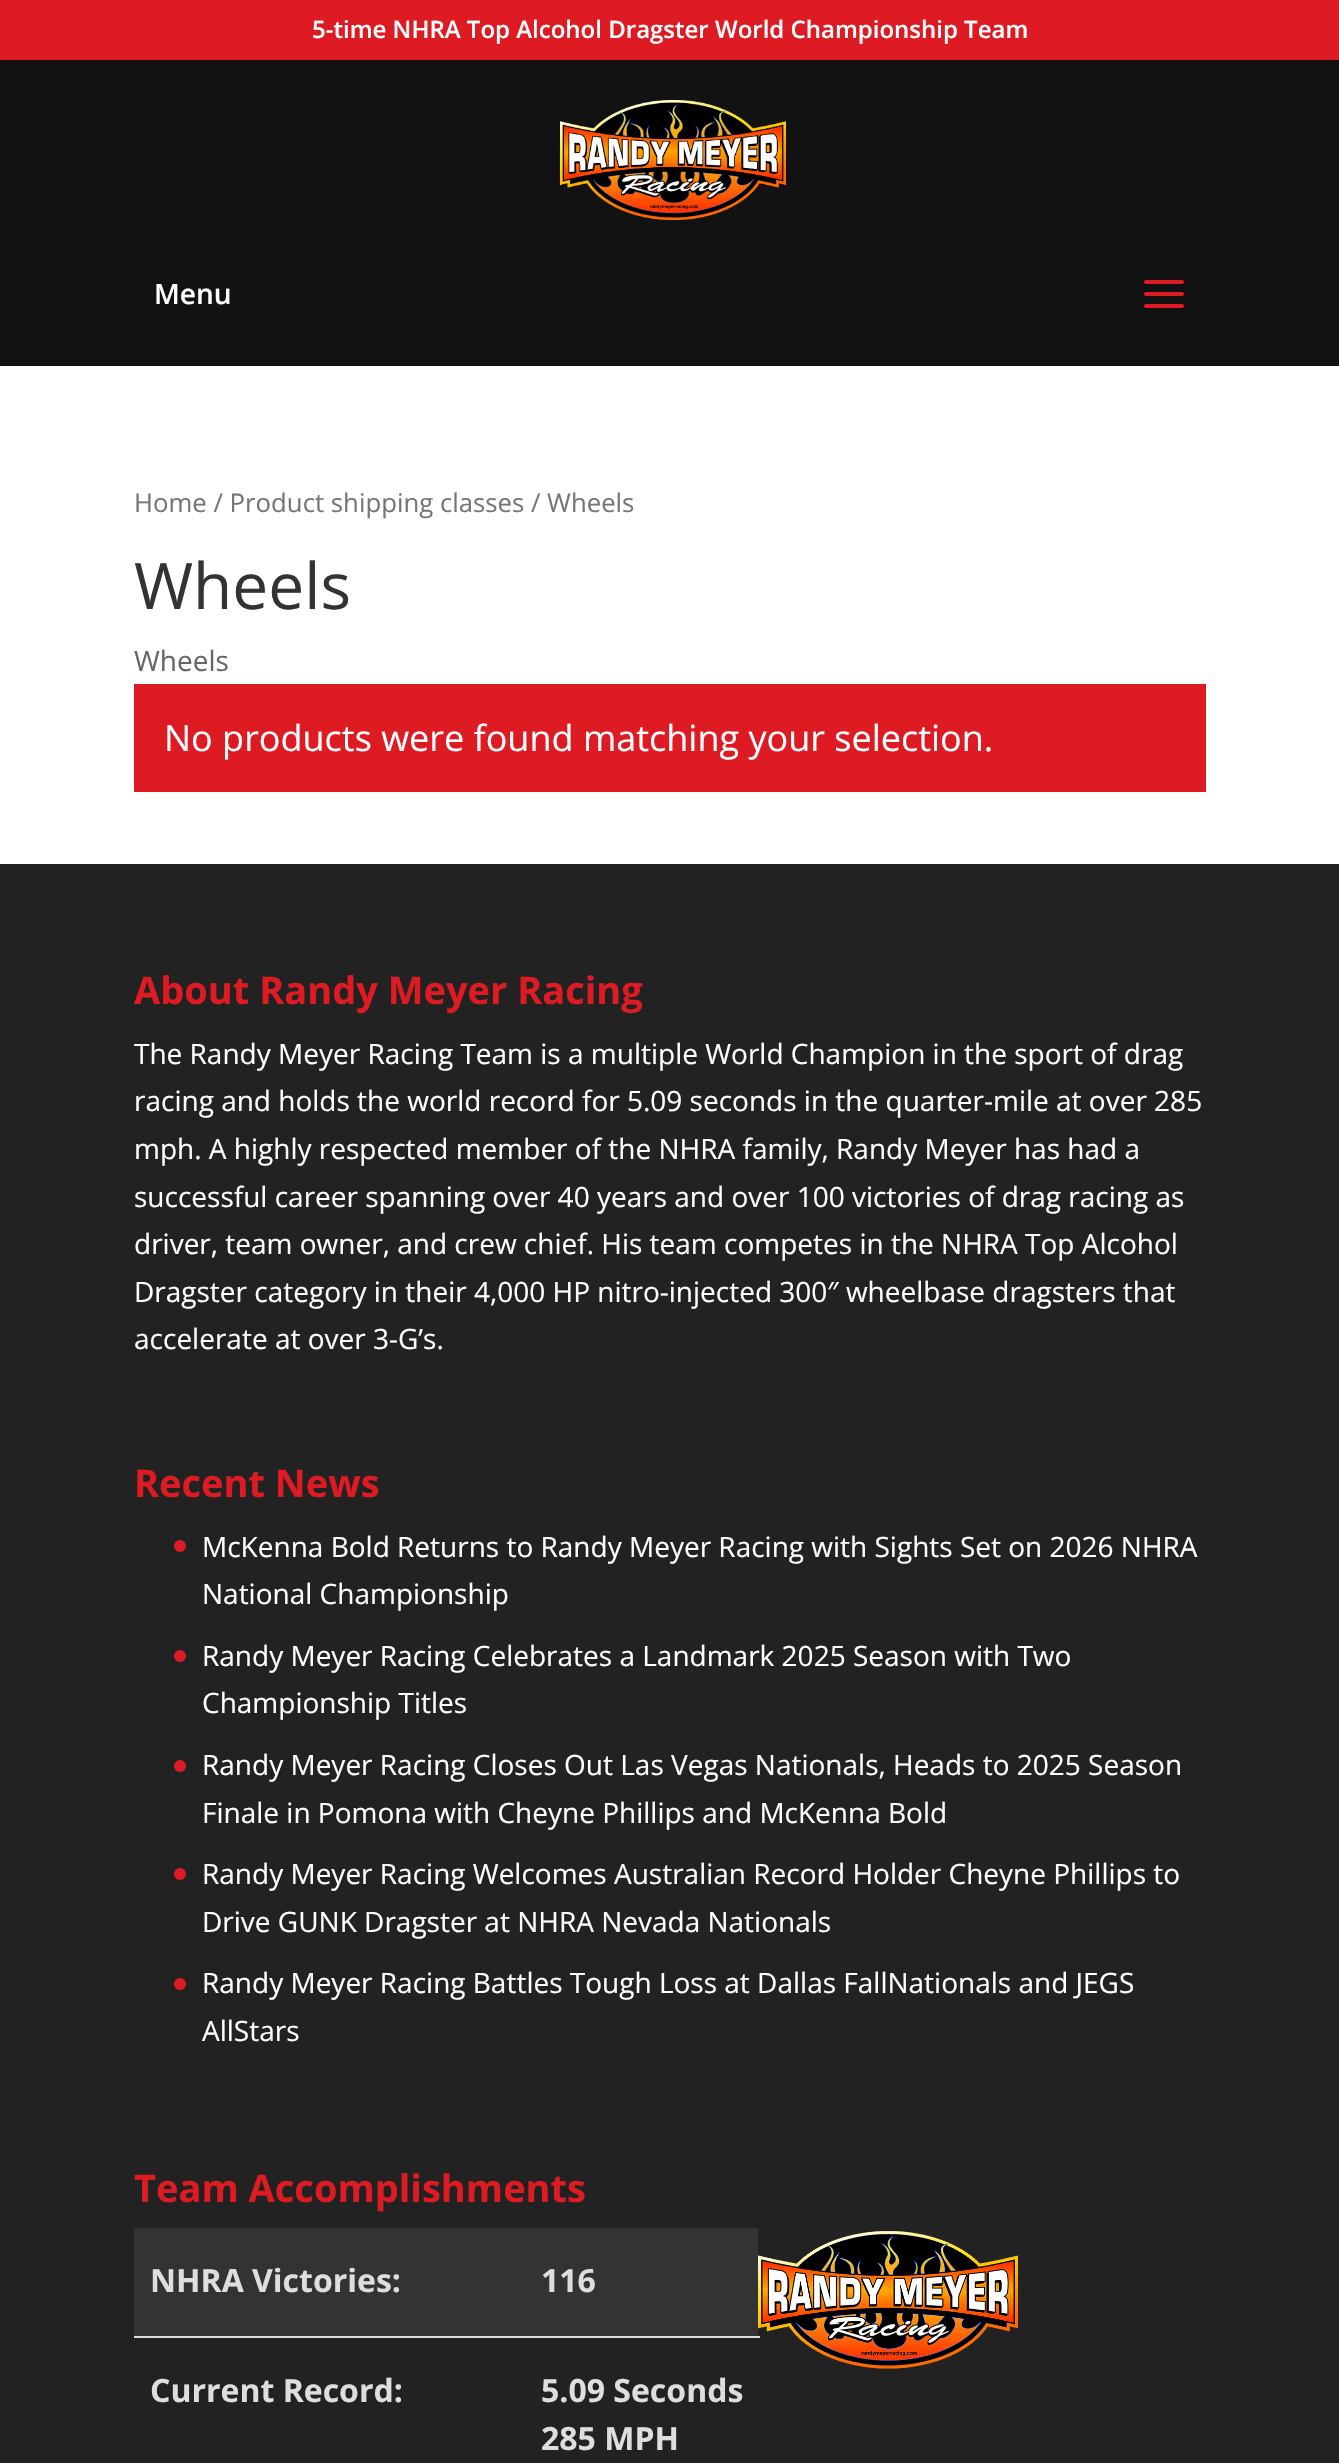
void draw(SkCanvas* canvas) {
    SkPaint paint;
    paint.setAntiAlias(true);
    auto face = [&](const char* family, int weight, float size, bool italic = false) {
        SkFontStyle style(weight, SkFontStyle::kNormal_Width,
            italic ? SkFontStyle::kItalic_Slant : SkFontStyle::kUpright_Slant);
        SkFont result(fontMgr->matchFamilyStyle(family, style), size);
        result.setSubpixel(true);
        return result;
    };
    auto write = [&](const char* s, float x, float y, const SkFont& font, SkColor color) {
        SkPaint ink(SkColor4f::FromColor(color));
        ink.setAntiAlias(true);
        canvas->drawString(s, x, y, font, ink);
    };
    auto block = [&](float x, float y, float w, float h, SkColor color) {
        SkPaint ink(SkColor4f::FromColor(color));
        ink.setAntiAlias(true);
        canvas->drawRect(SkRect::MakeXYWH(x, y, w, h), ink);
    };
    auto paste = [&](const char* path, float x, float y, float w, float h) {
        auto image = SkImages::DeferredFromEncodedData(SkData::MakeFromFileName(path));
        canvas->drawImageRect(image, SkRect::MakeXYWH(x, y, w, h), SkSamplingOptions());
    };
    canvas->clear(SK_ColorWHITE);
    block(0, 0, 1339, 60, SkColorSetRGB(222, 26, 35));
    auto kFont1 = face("Open Sans", 600, 24);
    write("5-time NHRA Top Alcohol Dragster World Championship Team", 312, 38, kFont1, SK_ColorWHITE);
    block(0, 60, 1339, 306, SkColorSetRGB(18, 18, 18));
    paste("pic1.png", 560, 100, 226, 120);
    auto kFont2 = face("Open Sans", 600, 28);
    write("Menu", 154, 304, kFont2, SK_ColorWHITE);
    paste("pic2.png", 1144, 280, 40, 28);
    auto kFont3 = face("Open Sans", 400, 25.75f);
    write("Home / Product shipping classes / Wheels", 134, 512, kFont3, SkColorSetRGB(118, 118, 118));
    auto kFont4 = face("Open Sans", 400, 64);
    write("Wheels", 134, 609, kFont4, SkColorSetRGB(51, 51, 51));
    auto kFont5 = face("Open Sans", 400, 28);
    write("Wheels", 134, 671, kFont5, SkColorSetRGB(102, 102, 102));
    block(134, 684, 1072, 108, SkColorSetRGB(222, 26, 35));
    auto kFont6 = face("Open Sans", 400, 36);
    write("No products were found matching your selection.", 164, 751, kFont6, SK_ColorWHITE);
    block(0, 864, 1339, 1599, SkColorSetRGB(34, 34, 34));
    auto kFont7 = face("Open Sans", 700, 38);
    write("About Randy Meyer Racing", 134, 1004, kFont7, SkColorSetRGB(222, 26, 35));
    write("The Randy Meyer Racing Team is a multiple World Champion in the sport of drag", 134, 1064, kFont5, SK_ColorWHITE);
    write("racing and holds the world record for 5.09 seconds in the quarter-mile at over 285", 134, 1111, kFont5, SK_ColorWHITE);
    write("mph. A highly respected member of the NHRA family, Randy Meyer has had a", 134, 1159, kFont5, SK_ColorWHITE);
    write("successful career spanning over 40 years and over 100 victories of drag racing as", 134, 1207, kFont5, SK_ColorWHITE);
    write("driver, team owner, and crew chief. His team competes in the NHRA Top Alcohol", 134, 1254, kFont5, SK_ColorWHITE);
    write("Dragster category in their 4,000 HP nitro-injected 300″ wheelbase dragsters that", 134, 1302, kFont5, SK_ColorWHITE);
    write("accelerate at over 3-G’s.", 134, 1349, kFont5, SK_ColorWHITE);
    write("Recent News", 134, 1497, kFont7, SkColorSetRGB(222, 26, 35));
    paint.setColor(SkColorSetRGB(222, 26, 35));
    canvas->drawCircle(180, 1546, 6, paint);
    write("McKenna Bold Returns to Randy Meyer Racing with Sights Set on 2026 NHRA", 202, 1557, kFont5, SK_ColorWHITE);
    write("National Championship", 202, 1604, kFont5, SK_ColorWHITE);
    canvas->drawCircle(180, 1656, 6, paint);
    write("Randy Meyer Racing Celebrates a Landmark 2025 Season with Two", 202, 1666, kFont5, SK_ColorWHITE);
    write("Championship Titles", 202, 1713, kFont5, SK_ColorWHITE);
    canvas->drawCircle(180, 1766, 6, paint);
    write("Randy Meyer Racing Closes Out Las Vegas Nationals, Heads to 2025 Season", 202, 1775, kFont5, SK_ColorWHITE);
    write("Finale in Pomona with Cheyne Phillips and McKenna Bold", 202, 1823, kFont5, SK_ColorWHITE);
    canvas->drawCircle(180, 1874, 6, paint);
    write("Randy Meyer Racing Welcomes Australian Record Holder Cheyne Phillips to", 202, 1884, kFont5, SK_ColorWHITE);
    write("Drive GUNK Dragster at NHRA Nevada Nationals", 202, 1932, kFont5, SK_ColorWHITE);
    canvas->drawCircle(180, 1984, 6, paint);
    write("Randy Meyer Racing Battles Tough Loss at Dallas FallNationals and JEGS", 202, 1993, kFont5, SK_ColorWHITE);
    write("AllStars", 202, 2041, kFont5, SK_ColorWHITE);
    write("Team Accomplishments", 134, 2202, kFont7, SkColorSetRGB(222, 26, 35));
    block(134, 2228, 624, 108, SkColorSetRGB(51, 51, 51));
    auto kFont8 = face("Open Sans", 700, 32);
    write("NHRA Victories:", 150, 2292, kFont8, SkColorSetRGB(222, 222, 222));
    write("116", 541, 2292, kFont8, SkColorSetRGB(222, 222, 222));
    write("Current Record:", 150, 2402, kFont8, SkColorSetRGB(222, 222, 222));
    block(134, 2336, 626, 2, SkColorSetRGB(221, 221, 221));
    write("5.09 Seconds", 541, 2402, kFont8, SkColorSetRGB(222, 222, 222));
    write("285 MPH", 541, 2450, kFont8, SkColorSetRGB(222, 222, 222));
    paste("pic3.png", 758, 2231, 260, 138);
}
